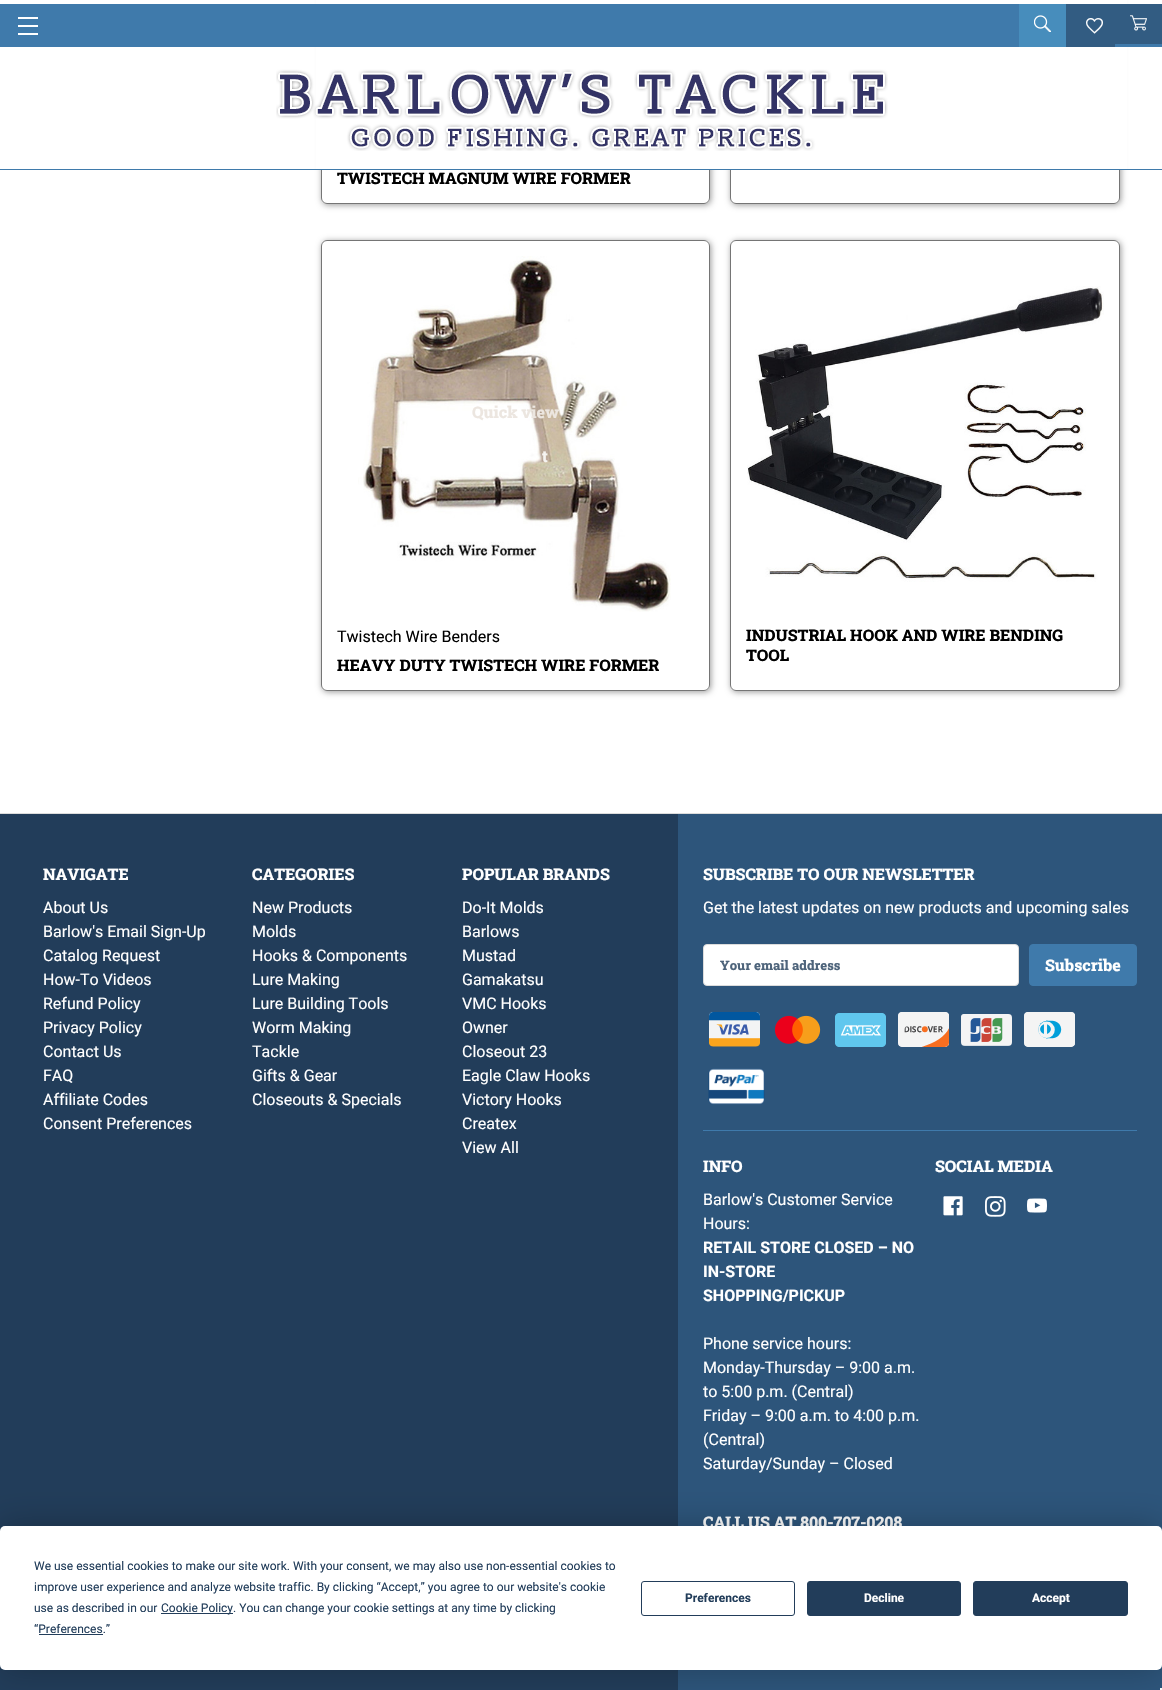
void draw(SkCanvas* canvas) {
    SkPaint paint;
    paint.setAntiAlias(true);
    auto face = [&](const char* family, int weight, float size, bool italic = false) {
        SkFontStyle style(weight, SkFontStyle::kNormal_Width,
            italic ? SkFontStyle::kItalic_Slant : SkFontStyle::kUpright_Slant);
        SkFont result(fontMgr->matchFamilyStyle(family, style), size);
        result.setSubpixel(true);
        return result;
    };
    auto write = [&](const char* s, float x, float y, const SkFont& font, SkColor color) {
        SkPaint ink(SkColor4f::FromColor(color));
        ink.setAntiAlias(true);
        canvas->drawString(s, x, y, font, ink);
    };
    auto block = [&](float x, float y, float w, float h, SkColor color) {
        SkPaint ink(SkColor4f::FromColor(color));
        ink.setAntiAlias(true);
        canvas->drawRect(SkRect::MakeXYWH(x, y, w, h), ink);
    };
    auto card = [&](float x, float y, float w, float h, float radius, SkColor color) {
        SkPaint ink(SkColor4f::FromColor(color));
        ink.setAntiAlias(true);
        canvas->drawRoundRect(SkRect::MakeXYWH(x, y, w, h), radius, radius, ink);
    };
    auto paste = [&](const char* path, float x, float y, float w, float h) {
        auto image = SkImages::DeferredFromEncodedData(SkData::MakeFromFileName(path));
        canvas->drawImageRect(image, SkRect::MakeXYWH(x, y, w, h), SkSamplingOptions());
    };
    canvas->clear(SK_ColorWHITE);
    canvas->save();
    canvas->clipPath(SkPathBuilder(SkPathFillType::kEvenOdd).moveTo(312, 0).lineTo(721, 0).lineTo(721, 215).lineTo(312, 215).close().moveTo(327, -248).lineTo(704, -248).cubicTo(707.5f, -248, 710, -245.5f, 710, -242).lineTo(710, 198).cubicTo(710, 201.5f, 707.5f, 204, 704, 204).lineTo(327, 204).cubicTo(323.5f, 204, 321, 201.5f, 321, 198).lineTo(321, -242).cubicTo(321, -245.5f, 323.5f, -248, 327, -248).close().detach(), true);
    paint.setColor(SkColorSetARGB(102, 0, 0, 0));
    paint.setMaskFilter(SkMaskFilter::MakeBlur(kNormal_SkBlurStyle, 3));
    canvas->drawRoundRect(SkRect::MakeXYWH(322, -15, 389, 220), 6, 6, paint);
    paint.setMaskFilter(nullptr);
    canvas->restore();
    paint.setStyle(SkPaint::kStroke_Style);
    paint.setStrokeWidth(1);
    paint.setColor(SkColorSetRGB(117, 117, 117));
    canvas->drawRoundRect(SkRect::MakeXYWH(321.5f, -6.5f, 388, 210), 5.5f, 5.5f, paint);
    canvas->save();
    canvas->clipPath(SkPathBuilder(SkPathFillType::kEvenOdd).moveTo(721, 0).lineTo(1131, 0).lineTo(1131, 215).lineTo(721, 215).close().moveTo(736, -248).lineTo(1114, -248).cubicTo(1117.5f, -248, 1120, -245.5f, 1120, -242).lineTo(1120, 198).cubicTo(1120, 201.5f, 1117.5f, 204, 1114, 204).lineTo(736, 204).cubicTo(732.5f, 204, 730, 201.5f, 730, 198).lineTo(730, -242).cubicTo(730, -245.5f, 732.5f, -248, 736, -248).close().detach(), true);
    paint.setStyle(SkPaint::kFill_Style);
    paint.setColor(SkColorSetARGB(102, 0, 0, 0));
    paint.setMaskFilter(SkMaskFilter::MakeBlur(kNormal_SkBlurStyle, 3));
    canvas->drawRoundRect(SkRect::MakeXYWH(731, -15, 390, 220), 6, 6, paint);
    paint.setMaskFilter(nullptr);
    canvas->restore();
    paint.setStyle(SkPaint::kStroke_Style);
    paint.setColor(SkColorSetRGB(117, 117, 117));
    canvas->drawRoundRect(SkRect::MakeXYWH(730.5f, -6.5f, 389, 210), 5.5f, 5.5f, paint);
    block(316, 0, 811, 169, SK_ColorWHITE);
    block(0, 4, 1162, 43, SkColorSetRGB(63, 122, 171));
    block(1019, 4, 47, 43, SkColorSetRGB(71, 141, 188));
    paste("pic1.png", 1034, 15, 17, 17);
    block(1066, 4, 49, 43, SkColorSetRGB(50, 92, 130));
    paste("pic2.png", 1086, 18, 17, 16);
    block(1115, 4, 47, 40, SkColorSetRGB(50, 92, 130));
    paste("pic3.png", 1130, 15, 17, 16);
    block(18, 25, 20, 2, SK_ColorWHITE);
    block(18, 17, 20, 2, SK_ColorWHITE);
    block(18, 33, 20, 2, SK_ColorWHITE);
    block(0, 169, 1162, 1, SkColorSetRGB(63, 122, 171));
    paste("pic4.png", 276, 69, 612, 82);
    auto kFont1 = face("Roboto Slab", 800, 16);
    write("TWISTECH MAGNUM WIRE FORMER", 337, 184, kFont1, SK_ColorBLACK);
    canvas->save();
    canvas->clipPath(SkPathBuilder(SkPathFillType::kEvenOdd).moveTo(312, 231).lineTo(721, 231).lineTo(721, 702).lineTo(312, 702).close().moveTo(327, 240).lineTo(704, 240).cubicTo(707.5f, 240, 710, 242.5f, 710, 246).lineTo(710, 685).cubicTo(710, 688.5f, 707.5f, 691, 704, 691).lineTo(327, 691).cubicTo(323.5f, 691, 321, 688.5f, 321, 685).lineTo(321, 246).cubicTo(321, 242.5f, 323.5f, 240, 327, 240).close().detach(), true);
    paint.setStyle(SkPaint::kFill_Style);
    paint.setColor(SkColorSetARGB(102, 0, 0, 0));
    paint.setMaskFilter(SkMaskFilter::MakeBlur(kNormal_SkBlurStyle, 3));
    canvas->drawRoundRect(SkRect::MakeXYWH(322, 241, 389, 451), 6, 6, paint);
    paint.setMaskFilter(nullptr);
    canvas->restore();
    paint.setStyle(SkPaint::kStroke_Style);
    paint.setColor(SkColorSetRGB(117, 117, 117));
    canvas->drawRoundRect(SkRect::MakeXYWH(321.5f, 240.5f, 388, 450), 5.5f, 5.5f, paint);
    paste("pic5.png", 358, 256, 313, 356);
    write("Quick view", 472, 418, kFont1, SkColorSetRGB(236, 230, 224));
    write("t", 542, 462, kFont1, SkColorSetRGB(246, 244, 241));
    auto kFont2 = face("Roboto", 400, 16);
    write("Twistech Wire Benders", 337, 642, kFont2, SK_ColorBLACK);
    write("HEAVY DUTY TWISTECH WIRE FORMER", 337, 671, kFont1, SK_ColorBLACK);
    canvas->save();
    canvas->clipPath(SkPathBuilder(SkPathFillType::kEvenOdd).moveTo(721, 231).lineTo(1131, 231).lineTo(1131, 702).lineTo(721, 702).close().moveTo(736, 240).lineTo(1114, 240).cubicTo(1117.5f, 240, 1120, 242.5f, 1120, 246).lineTo(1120, 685).cubicTo(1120, 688.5f, 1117.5f, 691, 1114, 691).lineTo(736, 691).cubicTo(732.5f, 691, 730, 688.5f, 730, 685).lineTo(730, 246).cubicTo(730, 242.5f, 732.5f, 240, 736, 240).close().detach(), true);
    paint.setStyle(SkPaint::kFill_Style);
    paint.setColor(SkColorSetARGB(102, 0, 0, 0));
    paint.setMaskFilter(SkMaskFilter::MakeBlur(kNormal_SkBlurStyle, 3));
    canvas->drawRoundRect(SkRect::MakeXYWH(731, 241, 390, 451), 6, 6, paint);
    paint.setMaskFilter(nullptr);
    canvas->restore();
    paint.setStyle(SkPaint::kStroke_Style);
    paint.setColor(SkColorSetRGB(117, 117, 117));
    canvas->drawRoundRect(SkRect::MakeXYWH(730.5f, 240.5f, 389, 450), 5.5f, 5.5f, paint);
    paste("pic6.png", 747, 286, 357, 296);
    write("INDUSTRIAL HOOK AND WIRE BENDING", 746, 641, kFont1, SK_ColorBLACK);
    write("TOOL", 746, 661, kFont1, SK_ColorBLACK);
    block(0, 814, 678, 876, SkColorSetRGB(34, 61, 90));
    block(0, 813, 1162, 1, SkColorSetRGB(220, 220, 220));
    write("NAVIGATE", 43, 880, kFont1, SK_ColorWHITE);
    write("About Us", 43, 913, kFont2, SK_ColorWHITE);
    write("Barlow's Email Sign-Up", 43, 937, kFont2, SK_ColorWHITE);
    write("Catalog Request", 43, 961, kFont2, SK_ColorWHITE);
    write("How-To Videos", 43, 985, kFont2, SK_ColorWHITE);
    write("Refund Policy", 43, 1009, kFont2, SK_ColorWHITE);
    write("Privacy Policy", 43, 1033, kFont2, SK_ColorWHITE);
    write("Contact Us", 43, 1057, kFont2, SK_ColorWHITE);
    write("FAQ", 43, 1081, kFont2, SK_ColorWHITE);
    write("Affiliate Codes", 43, 1105, kFont2, SK_ColorWHITE);
    write("Consent Preferences", 43, 1129, kFont2, SK_ColorWHITE);
    write("CATEGORIES", 252, 880, kFont1, SK_ColorWHITE);
    write("New Products", 252, 913, kFont2, SK_ColorWHITE);
    write("Molds", 252, 937, kFont2, SK_ColorWHITE);
    write("Hooks & Components", 252, 961, kFont2, SK_ColorWHITE);
    write("Lure Making", 252, 985, kFont2, SK_ColorWHITE);
    write("Lure Building Tools", 252, 1009, kFont2, SK_ColorWHITE);
    write("Worm Making", 252, 1033, kFont2, SK_ColorWHITE);
    write("Tackle", 252, 1057, kFont2, SK_ColorWHITE);
    write("Gifts & Gear", 252, 1081, kFont2, SK_ColorWHITE);
    write("Closeouts & Specials", 252, 1105, kFont2, SK_ColorWHITE);
    write("POPULAR BRANDS", 462, 880, kFont1, SK_ColorWHITE);
    write("Do-It Molds", 462, 913, kFont2, SK_ColorWHITE);
    write("Barlows", 462, 937, kFont2, SK_ColorWHITE);
    write("Mustad", 462, 961, kFont2, SK_ColorWHITE);
    write("Gamakatsu", 462, 985, kFont2, SK_ColorWHITE);
    write("VMC Hooks", 462, 1009, kFont2, SK_ColorWHITE);
    write("Owner", 462, 1033, kFont2, SK_ColorWHITE);
    write("Closeout 23", 462, 1057, kFont2, SK_ColorWHITE);
    write("Eagle Claw Hooks", 462, 1081, kFont2, SK_ColorWHITE);
    write("Victory Hooks", 462, 1105, kFont2, SK_ColorWHITE);
    write("Createx", 462, 1129, kFont2, SK_ColorWHITE);
    write("View All", 462, 1153, kFont2, SK_ColorWHITE);
    block(678, 814, 484, 876, SkColorSetRGB(45, 85, 123));
    write("SUBSCRIBE TO OUR NEWSLETTER", 703, 880, kFont1, SK_ColorWHITE);
    write("Get the latest updates on new products and upcoming sales", 703, 913, kFont2, SK_ColorWHITE);
    paint.setStyle(SkPaint::kFill_Style);
    paint.setColor(SK_ColorWHITE);
    canvas->drawRoundRect(SkRect::MakeXYWH(703.5f, 944.5f, 315, 41), 3.5f, 3.5f, paint);
    paint.setStyle(SkPaint::kStroke_Style);
    paint.setColor(SkColorSetRGB(220, 220, 220));
    canvas->drawRoundRect(SkRect::MakeXYWH(703.5f, 944.5f, 315, 41), 3.5f, 3.5f, paint);
    auto kFont3 = face("Roboto Slab", 800, 13);
    write("Your email address", 720, 970, kFont3, SkColorSetRGB(78, 100, 123));
    paint.setStyle(SkPaint::kFill_Style);
    paint.setColor(SkColorSetRGB(63, 122, 171));
    canvas->drawRoundRect(SkRect::MakeXYWH(1029.5f, 944.5f, 107, 41), 3.5f, 3.5f, paint);
    paint.setStyle(SkPaint::kStroke_Style);
    canvas->drawRoundRect(SkRect::MakeXYWH(1029.5f, 944.5f, 107, 41), 3.5f, 3.5f, paint);
    write("Subscribe", 1045, 971, kFont1, SK_ColorWHITE);
    paste("pic7.png", 709, 1012, 51, 35);
    paste("pic8.png", 774, 1015, 47, 29);
    paste("pic9.png", 835, 1013, 51, 34);
    paste("pic10.png", 898, 1012, 51, 35);
    paste("pic11.png", 961, 1014, 51, 32);
    paste("pic12.png", 1024, 1012, 51, 35);
    paste("pic13.png", 708, 1068, 57, 37);
    block(703, 1130, 434, 1, SkColorSetRGB(63, 122, 171));
    write("INFO", 703, 1172, kFont1, SK_ColorWHITE);
    write("Barlow's Customer Service", 703, 1205, kFont2, SK_ColorWHITE);
    write("Hours:", 703, 1229, kFont2, SK_ColorWHITE);
    auto kFont4 = face("Roboto", 700, 16);
    write("RETAIL STORE CLOSED – NO", 703, 1253, kFont4, SK_ColorWHITE);
    write("IN-STORE", 703, 1277, kFont4, SK_ColorWHITE);
    write("SHOPPING/PICKUP", 703, 1301, kFont4, SK_ColorWHITE);
    write("Phone service hours:", 703, 1349, kFont2, SK_ColorWHITE);
    write("Monday-Thursday – 9:00 a.m.", 703, 1373, kFont2, SK_ColorWHITE);
    write("to 5:00 p.m. (Central)", 703, 1397, kFont2, SK_ColorWHITE);
    write("Friday – 9:00 a.m. to 4:00 p.m.", 703, 1421, kFont2, SK_ColorWHITE);
    write("(Central)", 703, 1445, kFont2, SK_ColorWHITE);
    write("Saturday/Sunday – Closed", 703, 1469, kFont2, SK_ColorWHITE);
    write("CALL US AT 800-707-0208", 703, 1528, kFont1, SK_ColorWHITE);
    write("SOCIAL MEDIA", 935, 1172, kFont1, SK_ColorWHITE);
    paste("pic14.png", 943, 1196, 20, 20);
    paste("pic15.png", 985, 1196, 21, 21);
    paste("pic16.png", 1027, 1198, 20, 15);
    paint.setStyle(SkPaint::kFill_Style);
    paint.setColor(SkColorSetARGB(64, 0, 0, 0));
    paint.setMaskFilter(SkMaskFilter::MakeBlur(kNormal_SkBlurStyle, 17.5f));
    canvas->drawRoundRect(SkRect::MakeXYWH(0, 1526, 1162, 144), 5, 5, paint);
    paint.setMaskFilter(nullptr);
    card(0, 1526, 1162, 144, 5, SK_ColorWHITE);
    auto kFont5 = face("Roboto", 400, 12);
    write("We use essential cookies to make our site work. With your consent, we may also use non-essential cookies to", 34, 1570, kFont5, SkColorSetRGB(34, 61, 90));
    write("improve user experience and analyze website traffic. By clicking “Accept,” you agree to our website's cookie", 34, 1591, kFont5, SkColorSetRGB(34, 61, 90));
    write("use as described in our", 34, 1612, kFont5, SkColorSetRGB(34, 61, 90));
    block(161, 1613, 72, 1, SkColorSetRGB(34, 61, 90));
    write("Cookie Policy. You can change your cookie settings at any time by clicking", 161, 1612, kFont5, SkColorSetRGB(34, 61, 90));
    write("“Preferences.”", 34, 1633, kFont5, SkColorSetRGB(34, 61, 90));
    block(39, 1634, 64, 1, SkColorSetRGB(34, 61, 90));
    paint.setStyle(SkPaint::kStroke_Style);
    paint.setColor(SkColorSetRGB(34, 61, 90));
    canvas->drawRoundRect(SkRect::MakeXYWH(641.5f, 1581.5f, 153, 34), 2.5f, 2.5f, paint);
    auto kFont6 = face("Roboto", 700, 12);
    write("Preferences", 685, 1602, kFont6, SkColorSetRGB(34, 61, 90));
    paint.setStyle(SkPaint::kFill_Style);
    canvas->drawRoundRect(SkRect::MakeXYWH(807.5f, 1581.5f, 153, 34), 2.5f, 2.5f, paint);
    paint.setStyle(SkPaint::kStroke_Style);
    canvas->drawRoundRect(SkRect::MakeXYWH(807.5f, 1581.5f, 153, 34), 2.5f, 2.5f, paint);
    write("Decline", 864, 1602, kFont6, SK_ColorWHITE);
    paint.setStyle(SkPaint::kFill_Style);
    canvas->drawRoundRect(SkRect::MakeXYWH(973.5f, 1581.5f, 154, 34), 2.5f, 2.5f, paint);
    paint.setStyle(SkPaint::kStroke_Style);
    canvas->drawRoundRect(SkRect::MakeXYWH(973.5f, 1581.5f, 154, 34), 2.5f, 2.5f, paint);
    write("Accept", 1032, 1602, kFont6, SK_ColorWHITE);
    block(1160, 1688, 2, 2, SkColorSetRGB(245, 245, 245));
}
